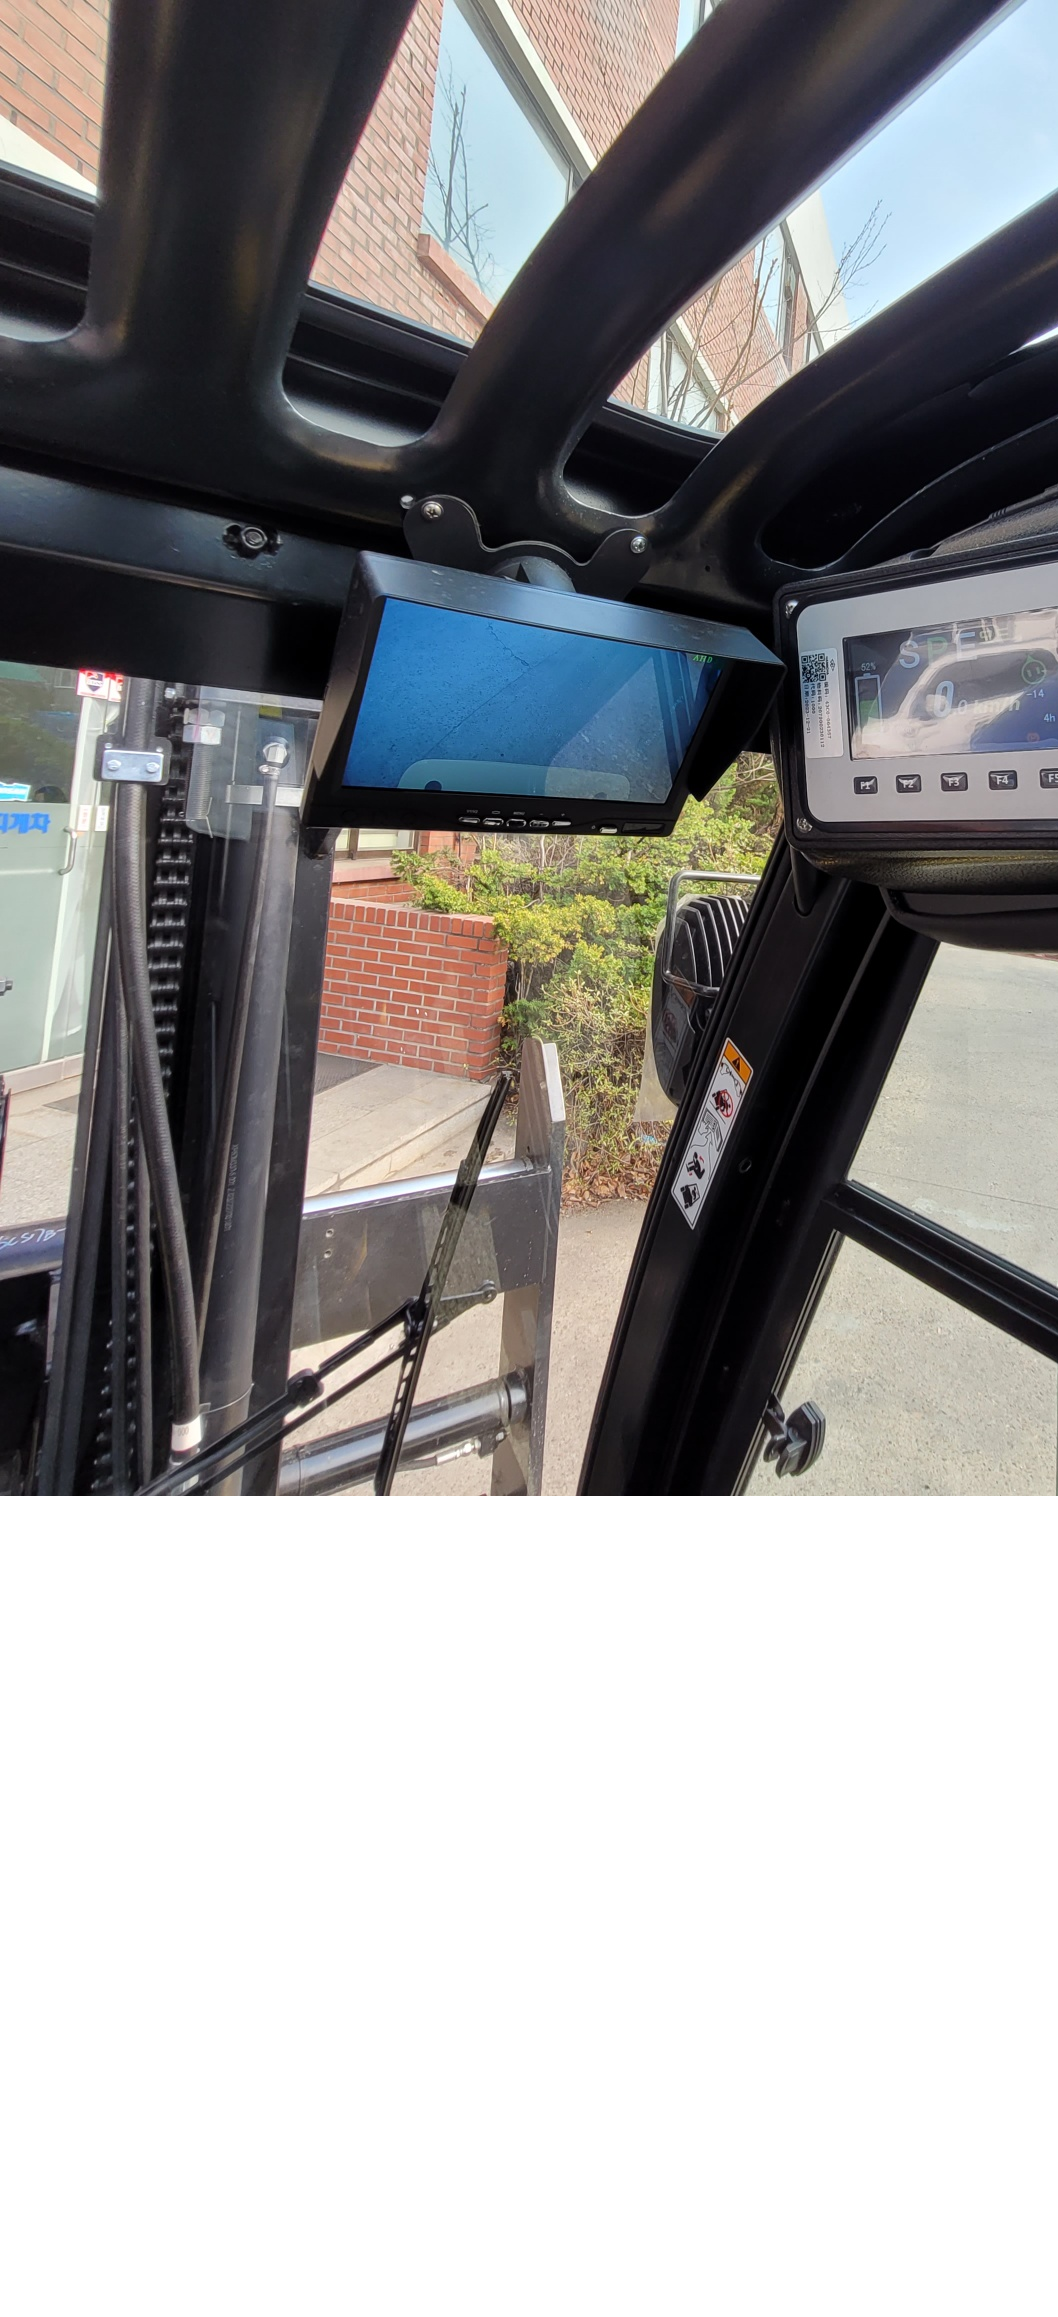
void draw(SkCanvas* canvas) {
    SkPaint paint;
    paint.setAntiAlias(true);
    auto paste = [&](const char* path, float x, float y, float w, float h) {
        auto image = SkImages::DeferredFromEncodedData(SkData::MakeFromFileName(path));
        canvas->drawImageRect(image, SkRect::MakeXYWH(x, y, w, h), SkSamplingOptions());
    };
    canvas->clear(SK_ColorWHITE);
    paste("pic1.png", 0, 0, 1058, 1496);
}
